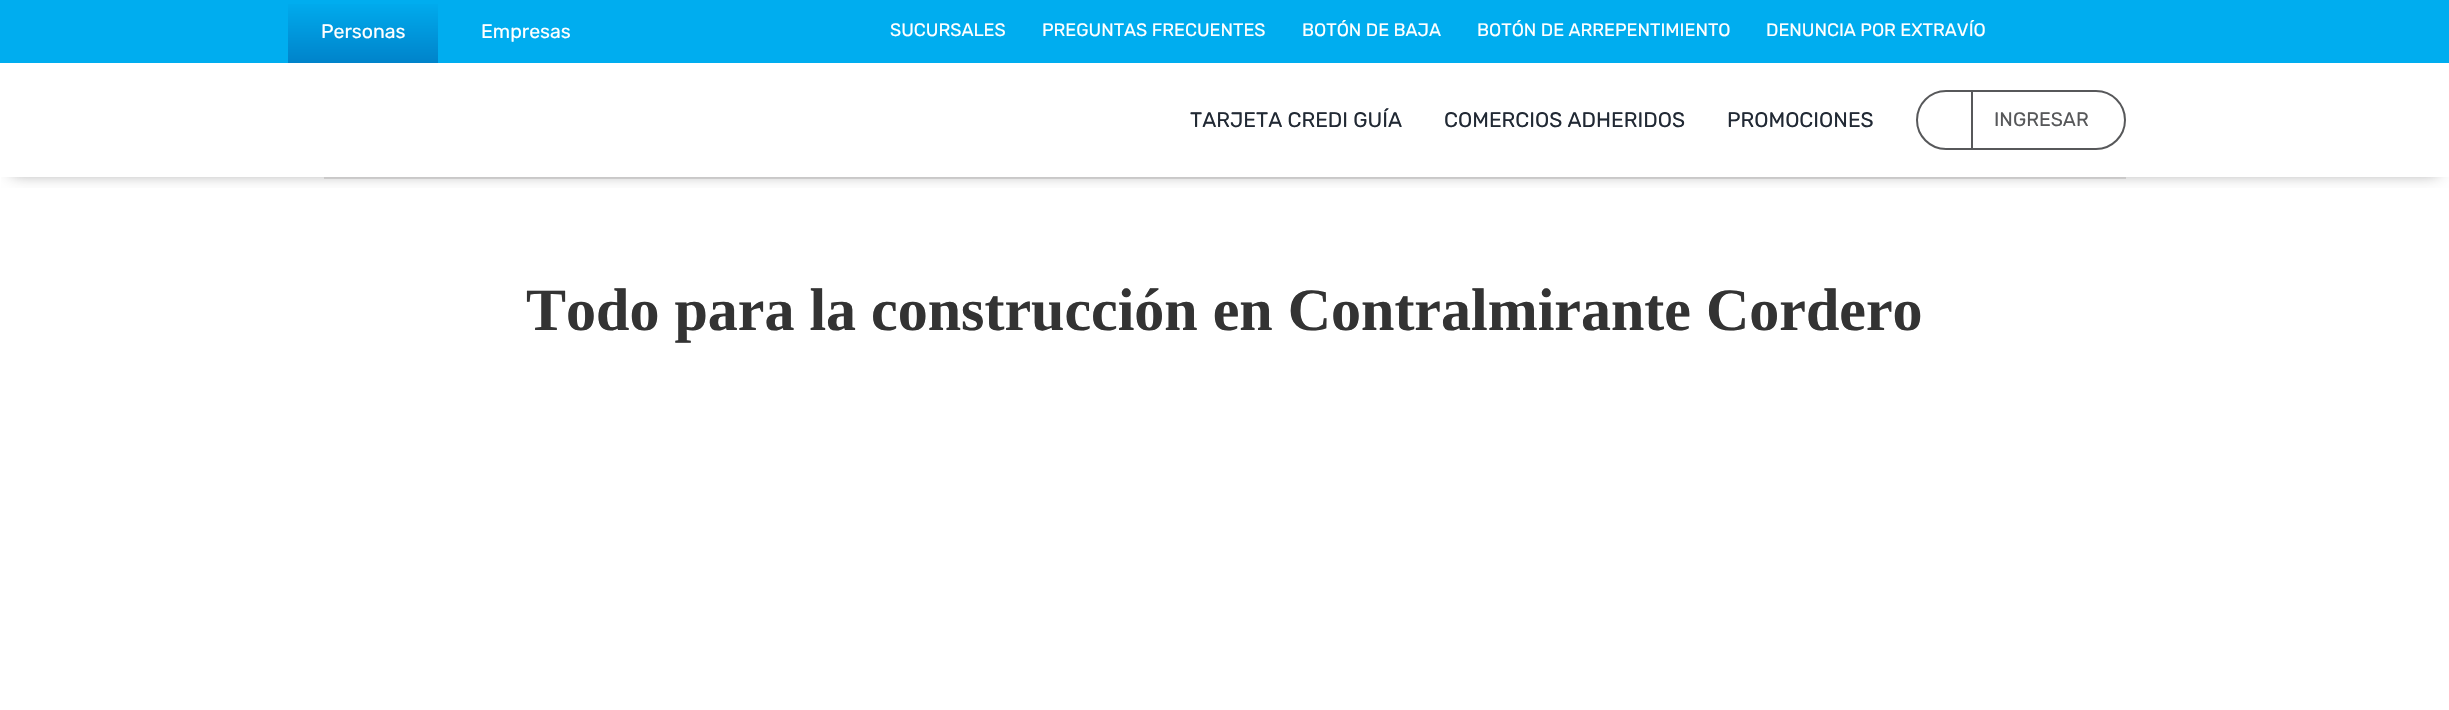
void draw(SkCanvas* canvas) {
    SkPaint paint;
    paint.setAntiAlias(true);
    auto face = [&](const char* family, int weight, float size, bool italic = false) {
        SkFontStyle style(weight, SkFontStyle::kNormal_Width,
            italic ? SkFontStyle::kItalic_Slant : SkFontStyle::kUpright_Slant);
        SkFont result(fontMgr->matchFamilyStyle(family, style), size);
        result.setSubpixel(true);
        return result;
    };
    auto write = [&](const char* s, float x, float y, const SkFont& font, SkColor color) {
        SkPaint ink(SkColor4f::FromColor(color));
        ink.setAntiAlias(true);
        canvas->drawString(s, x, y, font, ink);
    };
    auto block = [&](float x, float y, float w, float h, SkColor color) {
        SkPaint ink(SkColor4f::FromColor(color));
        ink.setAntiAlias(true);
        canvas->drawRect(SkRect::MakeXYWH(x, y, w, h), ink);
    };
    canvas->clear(SK_ColorWHITE);
    block(0, 0, 2449, 63, SkColorSetRGB(0, 173, 239));
    {
        const SkColor colors[] = {SkColorSetRGB(0, 131, 202), SkColorSetRGB(0, 173, 239)};
        const float stops[] = {0, 1};
        const SkPoint ends[] = {{363, 63}, {363, 0}};
        paint.setShader(SkGradientShader::MakeLinear(ends, colors, stops, 2, SkTileMode::kClamp));
        paint.setAlpha(255);
    }
    canvas->drawRect(SkRect::MakeXYWH(288, 4, 150, 59), paint);
    auto kFont1 = face("Rubik", 400, 19.5f);
    write("Personas", 321, 38, kFont1, SK_ColorWHITE);
    write("Empresas", 481, 38, kFont1, SK_ColorWHITE);
    auto kFont2 = face("Rubik", 400, 18);
    write("SUCURSALES", 890, 36, kFont2, SK_ColorWHITE);
    write("PREGUNTAS FRECUENTES", 1042, 36, kFont2, SK_ColorWHITE);
    write("BOTÓN DE BAJA", 1302, 36, kFont2, SK_ColorWHITE);
    write("BOTÓN DE ARREPENTIMIENTO", 1477, 36, kFont2, SK_ColorWHITE);
    write("DENUNCIA POR EXTRAVÍO", 1766, 36, kFont2, SK_ColorWHITE);
    block(324, 177, 1802, 2, SkColorSetRGB(224, 222, 222));
    canvas->save();
    canvas->clipRect(SkRect::MakeXYWH(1, 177, 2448, 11));
    paint.setShader(nullptr);
    paint.setColor(SkColorSetRGB(145, 145, 145));
    paint.setMaskFilter(SkMaskFilter::MakeBlur(kNormal_SkBlurStyle, 7.5f));
    canvas->drawRect(SkRect::MakeXYWH(12, 83, 2426, 90), paint);
    paint.setMaskFilter(nullptr);
    canvas->restore();
    auto kFont3 = face("Rubik", 400, 21);
    write("TARJETA CREDI GUÍA", 1190, 127, kFont3, SkColorSetRGB(33, 41, 52));
    write("COMERCIOS ADHERIDOS", 1444, 127, kFont3, SkColorSetRGB(33, 41, 52));
    write("PROMOCIONES", 1727, 127, kFont3, SkColorSetRGB(33, 41, 52));
    paint.setStyle(SkPaint::kStroke_Style);
    paint.setStrokeWidth(2);
    paint.setColor(SkColorSetRGB(87, 88, 90));
    canvas->drawRoundRect(SkRect::MakeXYWH(1917, 91, 208, 58), 29, 29, paint);
    block(1971, 92, 2, 57, SkColorSetRGB(87, 88, 90));
    write("INGRESAR", 1994, 126, kFont1, SkColorSetRGB(87, 88, 90));
    auto kFont4 = face("Liberation Serif", 700, 60);
    write("Todo para la construcción en Contralmirante Cordero", 526, 330, kFont4, SkColorSetRGB(51, 51, 51));
}
